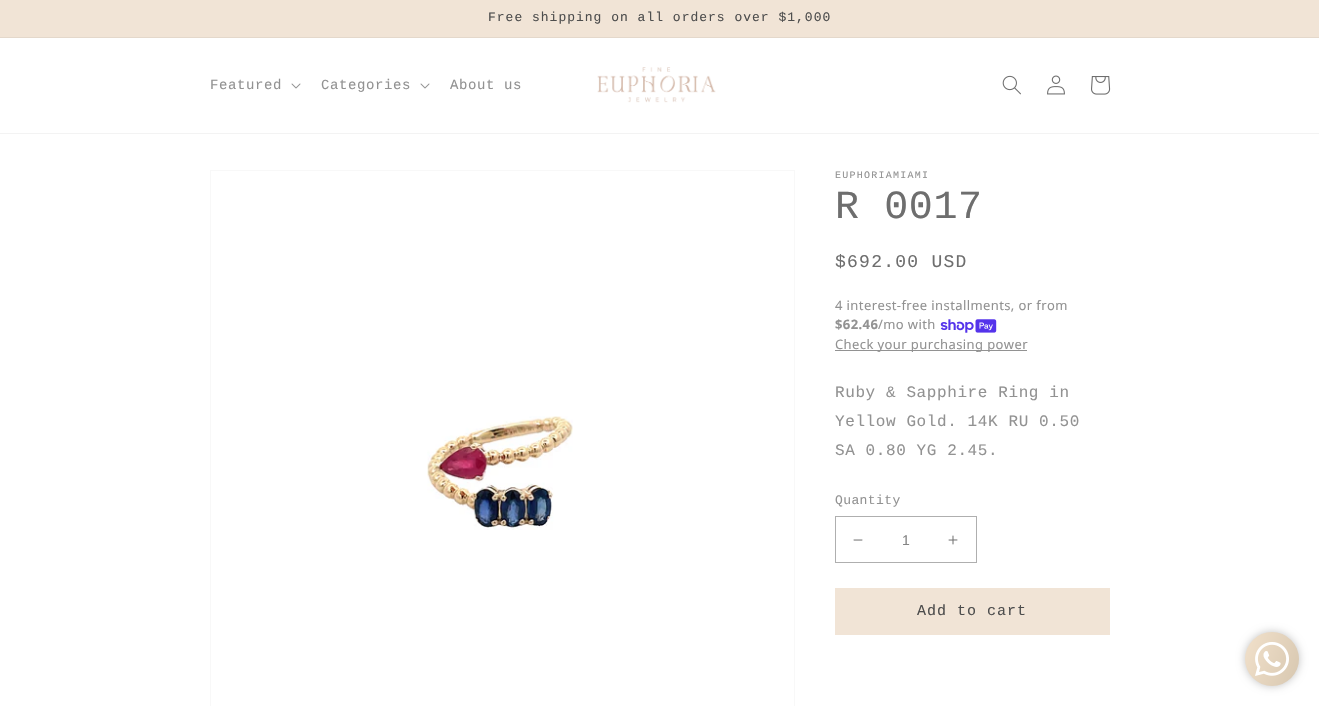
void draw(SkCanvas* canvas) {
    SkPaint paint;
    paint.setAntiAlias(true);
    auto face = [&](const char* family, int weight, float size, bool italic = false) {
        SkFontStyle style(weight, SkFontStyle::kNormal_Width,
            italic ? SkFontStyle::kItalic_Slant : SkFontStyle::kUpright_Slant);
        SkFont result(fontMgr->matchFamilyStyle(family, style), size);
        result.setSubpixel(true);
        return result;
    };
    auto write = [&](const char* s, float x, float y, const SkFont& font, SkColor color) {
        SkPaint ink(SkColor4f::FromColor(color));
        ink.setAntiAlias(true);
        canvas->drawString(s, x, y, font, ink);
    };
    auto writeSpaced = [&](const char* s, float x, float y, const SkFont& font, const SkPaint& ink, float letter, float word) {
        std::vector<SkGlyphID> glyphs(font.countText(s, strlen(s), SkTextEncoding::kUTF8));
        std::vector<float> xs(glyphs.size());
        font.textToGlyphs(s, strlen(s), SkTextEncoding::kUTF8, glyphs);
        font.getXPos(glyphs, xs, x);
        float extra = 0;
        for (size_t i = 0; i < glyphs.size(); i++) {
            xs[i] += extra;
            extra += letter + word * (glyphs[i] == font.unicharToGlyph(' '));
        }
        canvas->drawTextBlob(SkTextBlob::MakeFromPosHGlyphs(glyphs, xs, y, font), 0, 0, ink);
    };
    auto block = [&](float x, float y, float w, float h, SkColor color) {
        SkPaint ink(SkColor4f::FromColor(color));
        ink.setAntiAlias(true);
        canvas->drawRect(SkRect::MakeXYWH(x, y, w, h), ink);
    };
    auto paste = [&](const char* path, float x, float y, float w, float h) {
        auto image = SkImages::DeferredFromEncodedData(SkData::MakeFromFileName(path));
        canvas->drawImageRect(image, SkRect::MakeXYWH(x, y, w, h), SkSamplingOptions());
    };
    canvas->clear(SK_ColorWHITE);
    block(0, 0, 1319, 37, SkColorSetRGB(241, 228, 214));
    block(0, 37, 1319, 1, SkColorSetRGB(228, 216, 203));
    auto kFont1 = face("Liberation Mono", 400, 13);
    paint.setColor(SkColorSetRGB(77, 77, 77));
    writeSpaced("Free shipping on all orders over $1,000", 488, 21, kFont1, paint, 1, 0);
    block(0, 133, 1319, 1, SkColorSetRGB(243, 243, 243));
    auto kFont2 = face("Liberation Mono", 400, 14);
    paint.setColor(SkColorSetRGB(146, 146, 146));
    writeSpaced("Featured", 210, 89, kFont2, paint, 0.6f, 0);
    paste("pic1.png", 291, 83, 10, 6);
    writeSpaced("Categories", 321, 89, kFont2, paint, 0.6f, 0);
    paste("pic1.png", 420, 83, 10, 6);
    writeSpaced("About us", 450, 89, kFont2, paint, 0.6f, 0);
    paste("pic2.png", 597, 67, 119, 36);
    paste("pic3.png", 1002, 75, 19, 20);
    paste("pic4.png", 1047, 75, 18, 20);
    paste("pic5.png", 1091, 76, 20, 19);
    paint.setStyle(SkPaint::kStroke_Style);
    paint.setStrokeWidth(1);
    paint.setColor(SkColorSetRGB(248, 248, 248));
    canvas->drawRect(SkRect::MakeXYWH(210.5f, 170.5f, 584, 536), paint);
    paste("pic6.png", 427, 416, 146, 114);
    auto kFont3 = face("Liberation Mono", 400, 10);
    paint.setStyle(SkPaint::kFill_Style);
    paint.setColor(SkColorSetRGB(146, 146, 146));
    writeSpaced("EUPHORIAMIAMI", 835, 178, kFont3, paint, 1.25f, 0);
    auto kFont4 = face("Liberation Mono", 400, 40);
    paint.setColor(SkColorSetRGB(110, 110, 110));
    writeSpaced("R 0017", 835, 218, kFont4, paint, 0.6f, 0);
    auto kFont5 = face("Liberation Mono", 400, 18);
    writeSpaced("$692.00 USD", 835, 267, kFont5, paint, 1.25f, 0);
    auto kFont6 = face("Noto Sans", 400, 13);
    paint.setColor(SkColorSetRGB(146, 146, 146));
    writeSpaced("4 interest-free installments, or from", 835, 310, kFont6, paint, 0.4f, 0);
    auto kFont7 = face("Noto Sans", 700, 13);
    writeSpaced("$62.46", 835, 329, kFont7, paint, 0.4f, 0);
    writeSpaced("/mo with", 878, 329, kFont6, paint, 0.4f, 0);
    paste("pic7.png", 940, 319, 57, 14);
    block(835, 350, 192, 1, SkColorSetRGB(146, 146, 146));
    writeSpaced("Check your purchasing power", 835, 349, kFont6, paint, 0.4f, 0);
    auto kFont8 = face("Liberation Mono", 400, 16);
    writeSpaced("Ruby & Sapphire Ring in", 835, 397, kFont8, paint, 0.6f, 0);
    writeSpaced("Yellow Gold. 14K RU 0.50", 835, 426, kFont8, paint, 0.6f, 0);
    writeSpaced("SA 0.80 YG 2.45.", 835, 455, kFont8, paint, 0.6f, 0);
    writeSpaced("Quantity", 835, 504, kFont1, paint, 0.4f, 0);
    paste("pic8.png", 853, 539, 10, 2);
    paste("pic9.png", 948, 535, 10, 10);
    paint.setStyle(SkPaint::kStroke_Style);
    paint.setColor(SkColorSetRGB(175, 175, 175));
    canvas->drawRect(SkRect::MakeXYWH(835.5f, 516.5f, 141, 46), paint);
    auto kFont9 = face("Liberation Sans", 400, 14);
    write("1", 902, 545, kFont9, SkColorSetRGB(132, 132, 132));
    block(835, 588, 275, 47, SkColorSetRGB(241, 228, 214));
    auto kFont10 = face("Liberation Mono", 400, 15);
    paint.setStyle(SkPaint::kFill_Style);
    paint.setColor(SkColorSetRGB(77, 77, 77));
    writeSpaced("Add to cart", 917, 615, kFont10, paint, 1, 0);
    paint.setColor(SkColorSetRGB(194, 194, 194));
    paint.setMaskFilter(SkMaskFilter::MakeBlur(kNormal_SkBlurStyle, 4));
    canvas->drawRoundRect(SkRect::MakeXYWH(1245, 632, 54, 54), 27, 27, paint);
    paint.setMaskFilter(nullptr);
    {
        const SkColor colors[] = {SkColorSetRGB(242, 225, 203), SkColorSetRGB(242, 225, 203), SkColorSetRGB(215, 199, 176)};
        const float stops[] = {0, 0, 1};
        const SkPoint ends[] = {{1239, 646}, {1305, 672}};
        paint.setShader(SkGradientShader::MakeLinear(ends, colors, stops, 3, SkTileMode::kClamp));
        paint.setAlpha(255);
    }
    canvas->drawCircle(1272, 659, 27, paint);
    paste("pic10.png", 1255, 642, 34, 34);
}
